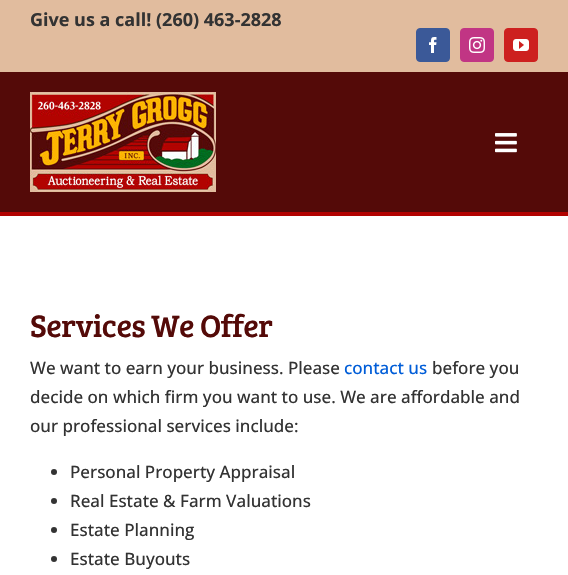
void draw(SkCanvas* canvas) {
    SkPaint paint;
    paint.setAntiAlias(true);
    auto face = [&](const char* family, int weight, float size, bool italic = false) {
        SkFontStyle style(weight, SkFontStyle::kNormal_Width,
            italic ? SkFontStyle::kItalic_Slant : SkFontStyle::kUpright_Slant);
        SkFont result(fontMgr->matchFamilyStyle(family, style), size);
        result.setSubpixel(true);
        return result;
    };
    auto write = [&](const char* s, float x, float y, const SkFont& font, SkColor color) {
        SkPaint ink(SkColor4f::FromColor(color));
        ink.setAntiAlias(true);
        canvas->drawString(s, x, y, font, ink);
    };
    auto writeSpaced = [&](const char* s, float x, float y, const SkFont& font, const SkPaint& ink, float letter, float word) {
        std::vector<SkGlyphID> glyphs(font.countText(s, strlen(s), SkTextEncoding::kUTF8));
        std::vector<float> xs(glyphs.size());
        font.textToGlyphs(s, strlen(s), SkTextEncoding::kUTF8, glyphs);
        font.getXPos(glyphs, xs, x);
        float extra = 0;
        for (size_t i = 0; i < glyphs.size(); i++) {
            xs[i] += extra;
            extra += letter + word * (glyphs[i] == font.unicharToGlyph(' '));
        }
        canvas->drawTextBlob(SkTextBlob::MakeFromPosHGlyphs(glyphs, xs, y, font), 0, 0, ink);
    };
    auto block = [&](float x, float y, float w, float h, SkColor color) {
        SkPaint ink(SkColor4f::FromColor(color));
        ink.setAntiAlias(true);
        canvas->drawRect(SkRect::MakeXYWH(x, y, w, h), ink);
    };
    auto paste = [&](const char* path, float x, float y, float w, float h) {
        auto image = SkImages::DeferredFromEncodedData(SkData::MakeFromFileName(path));
        canvas->drawImageRect(image, SkRect::MakeXYWH(x, y, w, h), SkSamplingOptions());
    };
    canvas->clear(SK_ColorWHITE);
    block(0, 0, 568, 72, SkColorSetRGB(225, 188, 158));
    auto kFont1 = face("Open Sans", 700, 18);
    write("Give us a call! (260) 463-2828", 30, 26, kFont1, SkColorSetRGB(51, 51, 51));
    paint.setColor(SkColorSetRGB(59, 89, 152));
    canvas->drawRoundRect(SkRect::MakeXYWH(416.5f, 28.5f, 33, 33), 3.5f, 3.5f, paint);
    paint.setStyle(SkPaint::kStroke_Style);
    paint.setStrokeWidth(1);
    canvas->drawRoundRect(SkRect::MakeXYWH(416.5f, 28.5f, 33, 33), 3.5f, 3.5f, paint);
    paste("pic1.png", 429, 37, 8, 16);
    paint.setStyle(SkPaint::kFill_Style);
    paint.setColor(SkColorSetRGB(193, 53, 132));
    canvas->drawRoundRect(SkRect::MakeXYWH(460.5f, 28.5f, 33, 33), 3.5f, 3.5f, paint);
    paint.setStyle(SkPaint::kStroke_Style);
    canvas->drawRoundRect(SkRect::MakeXYWH(460.5f, 28.5f, 33, 33), 3.5f, 3.5f, paint);
    paste("pic2.png", 469, 37, 16, 16);
    paint.setStyle(SkPaint::kFill_Style);
    paint.setColor(SkColorSetRGB(205, 32, 31));
    canvas->drawRoundRect(SkRect::MakeXYWH(504.5f, 28.5f, 33, 33), 3.5f, 3.5f, paint);
    paint.setStyle(SkPaint::kStroke_Style);
    canvas->drawRoundRect(SkRect::MakeXYWH(504.5f, 28.5f, 33, 33), 3.5f, 3.5f, paint);
    paste("pic3.png", 513, 39, 16, 12);
    block(0, 72, 568, 140, SkColorSetRGB(84, 10, 8));
    block(0, 212, 568, 4, SkColorSetRGB(178, 2, 0));
    paste("pic4.png", 30, 92, 186, 100);
    paste("pic5.png", 495, 133, 22, 20);
    auto kFont2 = face("Bree Serif", 400, 32);
    paint.setStyle(SkPaint::kFill_Style);
    paint.setColor(SkColorSetRGB(84, 10, 8));
    writeSpaced("Services We Offer", 30, 337, kFont2, paint, -0.5f, 0);
    auto kFont3 = face("Open Sans", 500, 17);
    write("We want to earn your business. Please", 30, 374, kFont3, SkColorSetRGB(51, 51, 51));
    write("contact us", 344, 374, kFont3, SkColorSetRGB(0, 93, 216));
    write("before you", 432, 374, kFont3, SkColorSetRGB(51, 51, 51));
    write("decide on which firm you want to use. We are affordable and", 30, 403, kFont3, SkColorSetRGB(51, 51, 51));
    write("our professional services include:", 30, 432, kFont3, SkColorSetRGB(51, 51, 51));
    paint.setColor(SkColorSetRGB(51, 51, 51));
    canvas->drawCircle(54, 472, 3, paint);
    write("Personal Property Appraisal", 70, 478, kFont3, SkColorSetRGB(51, 51, 51));
    canvas->drawCircle(54, 501, 3, paint);
    write("Real Estate & Farm Valuations", 70, 507, kFont3, SkColorSetRGB(51, 51, 51));
    canvas->drawCircle(54, 530, 3, paint);
    write("Estate Planning", 70, 536, kFont3, SkColorSetRGB(51, 51, 51));
    canvas->drawCircle(54, 559, 3, paint);
    write("Estate Buyouts", 70, 565, kFont3, SkColorSetRGB(51, 51, 51));
}
